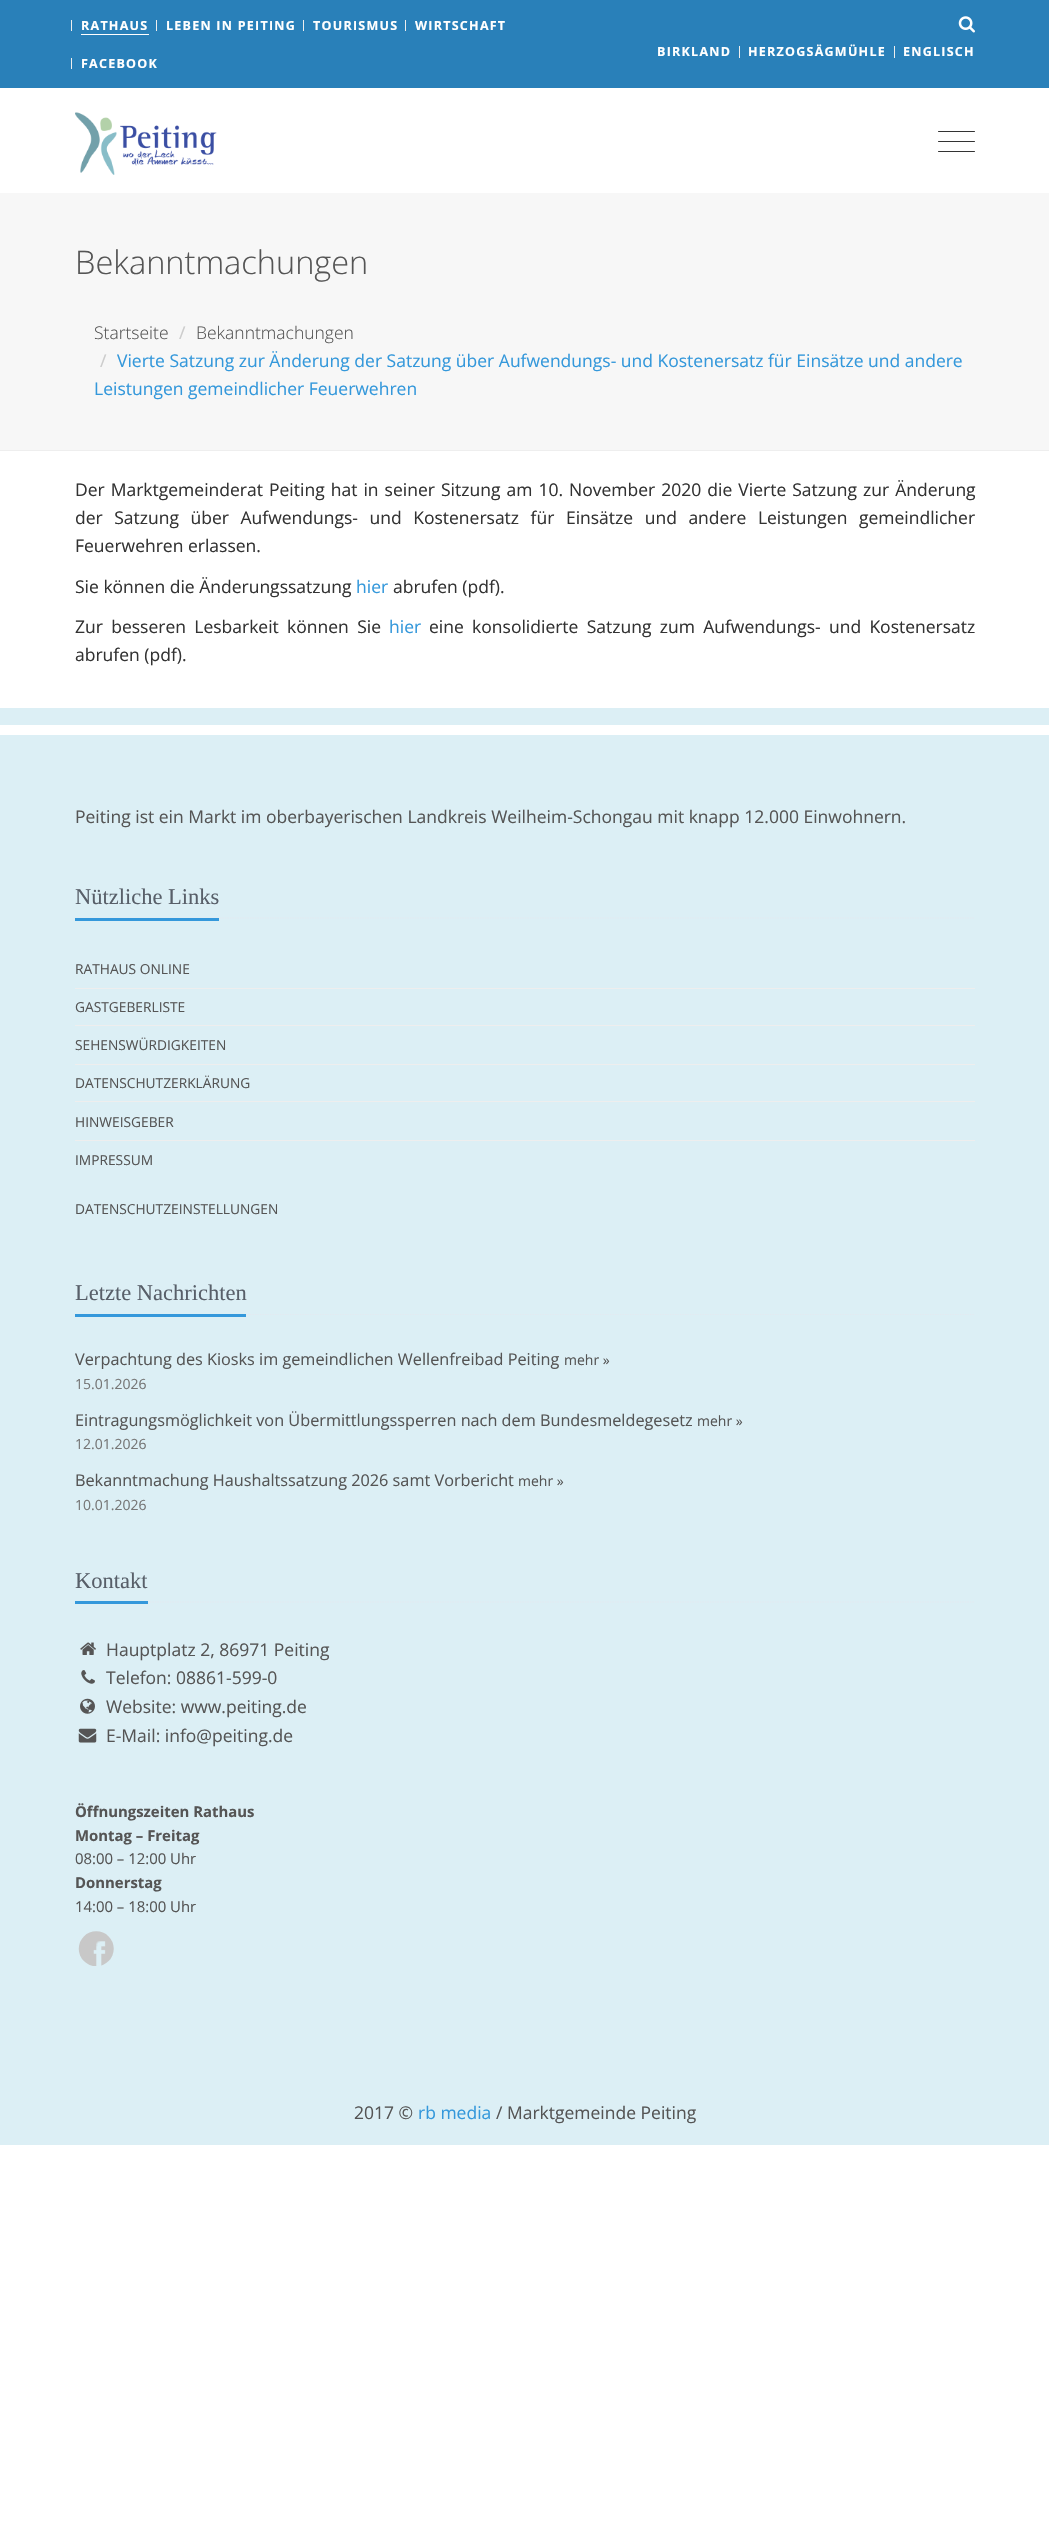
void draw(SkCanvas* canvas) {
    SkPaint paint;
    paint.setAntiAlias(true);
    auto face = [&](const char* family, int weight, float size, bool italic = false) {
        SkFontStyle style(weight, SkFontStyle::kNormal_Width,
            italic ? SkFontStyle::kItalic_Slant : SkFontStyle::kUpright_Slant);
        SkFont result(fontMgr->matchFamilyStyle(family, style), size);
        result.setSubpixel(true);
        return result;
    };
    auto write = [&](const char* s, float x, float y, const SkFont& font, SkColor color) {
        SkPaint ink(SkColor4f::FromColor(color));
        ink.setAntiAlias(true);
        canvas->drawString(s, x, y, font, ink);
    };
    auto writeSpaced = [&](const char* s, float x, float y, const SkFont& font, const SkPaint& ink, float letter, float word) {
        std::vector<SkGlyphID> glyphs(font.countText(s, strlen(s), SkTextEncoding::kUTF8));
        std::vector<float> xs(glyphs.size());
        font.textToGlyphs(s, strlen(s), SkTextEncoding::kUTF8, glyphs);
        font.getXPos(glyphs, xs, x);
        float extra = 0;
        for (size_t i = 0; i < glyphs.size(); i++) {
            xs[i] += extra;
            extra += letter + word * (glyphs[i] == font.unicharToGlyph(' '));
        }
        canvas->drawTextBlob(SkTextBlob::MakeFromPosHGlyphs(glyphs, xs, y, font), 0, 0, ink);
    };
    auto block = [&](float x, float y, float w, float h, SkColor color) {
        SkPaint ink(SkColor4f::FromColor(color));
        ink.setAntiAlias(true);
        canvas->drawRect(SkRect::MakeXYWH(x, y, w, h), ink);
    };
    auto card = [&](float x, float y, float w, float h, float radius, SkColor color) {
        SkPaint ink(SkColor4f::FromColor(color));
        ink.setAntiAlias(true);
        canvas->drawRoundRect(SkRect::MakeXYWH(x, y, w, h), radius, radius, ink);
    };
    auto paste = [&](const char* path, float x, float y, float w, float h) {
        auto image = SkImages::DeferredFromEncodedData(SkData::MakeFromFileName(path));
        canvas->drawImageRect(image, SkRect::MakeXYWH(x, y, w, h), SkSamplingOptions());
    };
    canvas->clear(SK_ColorWHITE);
    block(0, 0, 1049, 88, SkColorSetRGB(41, 128, 185));
    block(71, 20, 1, 11, SkColorSetRGB(238, 238, 238));
    auto kFont1 = face("Open Sans", 700, 12.5f);
    paint.setColor(SK_ColorWHITE);
    writeSpaced("RATHAUS", 81, 30, kFont1, paint, 1.25f, 0);
    block(81, 34, 68, 1, SK_ColorWHITE);
    block(156, 20, 1, 11, SkColorSetRGB(238, 238, 238));
    writeSpaced("LEBEN IN PEITING", 166, 30, kFont1, paint, 1.25f, 0);
    block(303, 20, 1, 11, SkColorSetRGB(238, 238, 238));
    writeSpaced("TOURISMUS", 313, 30, kFont1, paint, 1.25f, 0);
    block(405, 20, 1, 11, SkColorSetRGB(238, 238, 238));
    writeSpaced("WIRTSCHAFT", 415, 30, kFont1, paint, 1.25f, 0);
    block(71, 58, 1, 11, SkColorSetRGB(238, 238, 238));
    writeSpaced("FACEBOOK", 81, 68, kFont1, paint, 1.25f, 0);
    paste("pic1.png", 958, 16, 17, 17);
    writeSpaced("BIRKLAND", 657, 56, kFont1, paint, 1.25f, 0);
    block(739, 46, 1, 12, SkColorSetRGB(238, 238, 238));
    writeSpaced("HERZOGSÄGMÜHLE", 748, 56, kFont1, paint, 1.25f, 0);
    block(894, 46, 1, 12, SkColorSetRGB(238, 238, 238));
    writeSpaced("ENGLISCH", 903, 56, kFont1, paint, 1.25f, 0);
    paste("pic2.png", 75, 112, 142, 63);
    card(938, 131, 37, 1, 0.5f, SkColorSetRGB(51, 51, 51));
    card(938, 141, 37, 1, 0.5f, SkColorSetRGB(51, 51, 51));
    card(938, 151, 37, 1, 0.5f, SkColorSetRGB(51, 51, 51));
    block(0, 193, 1049, 257, SkColorSetRGB(247, 247, 247));
    block(0, 450, 1049, 1, SkColorSetRGB(238, 238, 238));
    auto kFont2 = face("Open Sans", 300, 32.5f);
    write("Bekanntmachungen", 75, 274, kFont2, SkColorSetRGB(85, 85, 85));
    auto kFont3 = face("Open Sans", 300, 17.5f);
    write("Startseite", 94, 339, kFont3, SkColorSetRGB(85, 85, 85));
    auto kFont4 = face("Open Sans", 400, 17.5f);
    write("/", 179, 339, kFont4, SkColorSetRGB(204, 204, 204));
    write("Bekanntmachungen", 196, 339, kFont3, SkColorSetRGB(85, 85, 85));
    write("/", 100, 367, kFont4, SkColorSetRGB(204, 204, 204));
    write("Vierte Satzung zur Änderung der Satzung über Aufwendungs- und Kostenersatz für Einsätze und andere", 117, 367, kFont4, SkColorSetRGB(52, 152, 219));
    write("Leistungen gemeindlicher Feuerwehren", 94, 395, kFont4, SkColorSetRGB(52, 152, 219));
    paint.setColor(SkColorSetRGB(51, 51, 51));
    writeSpaced("Der Marktgemeinderat Peiting hat in seiner Sitzung am 10. November 2020 die Vierte Satzung zur Änderung", 75, 496, kFont4, paint, 0, 1.5f);
    writeSpaced("der Satzung über Aufwendungs- und Kostenersatz für Einsätze und andere Leistungen gemeindlicher", 75, 524, kFont4, paint, 0, 7);
    write("Feuerwehren erlassen.", 75, 552, kFont4, SkColorSetRGB(51, 51, 51));
    write("Sie können die Änderungssatzung", 75, 593, kFont4, SkColorSetRGB(51, 51, 51));
    write("hier", 356, 593, kFont4, SkColorSetRGB(52, 152, 219));
    write("abrufen (pdf).", 393, 593, kFont4, SkColorSetRGB(51, 51, 51));
    writeSpaced("Zur besseren Lesbarkeit können Sie", 75, 633, kFont4, paint, 0, 3.75f);
    write("hier", 389, 633, kFont4, SkColorSetRGB(52, 152, 219));
    writeSpaced("eine konsolidierte Satzung zum Aufwendungs- und Kostenersatz", 429, 633, kFont4, paint, 0, 3.75f);
    write("abrufen (pdf).", 75, 661, kFont4, SkColorSetRGB(51, 51, 51));
    block(0, 708, 1049, 1437, SkColorSetRGB(220, 239, 245));
    block(0, 725, 1049, 10, SK_ColorWHITE);
    write("Peiting ist ein Markt im oberbayerischen Landkreis Weilheim-Schongau mit knapp 12.000 Einwohnern.", 75, 823, kFont4, SkColorSetRGB(85, 85, 85));
    paint.setStyle(SkPaint::kStroke_Style);
    paint.setStrokeWidth(1.2f);
    paint.setColor(SkColorSetRGB(228, 233, 240));
    paint.setPathEffect(SkDashPathEffect::Make({{1.25f, 1.25f}}, 0));
    canvas->drawPath(SkPathBuilder().moveTo(75, 918).lineTo(975, 918).detach(), paint);
    paint.setPathEffect(nullptr);
    block(75, 918, 144, 3, SkColorSetRGB(52, 152, 219));
    auto kFont5 = face("Liberation Serif", 400, 22.5f);
    write("Nützliche Links", 75, 904, kFont5, SkColorSetRGB(88, 95, 105));
    auto kFont6 = face("Open Sans", 400, 13.75f);
    write("RATHAUS ONLINE", 75, 974, kFont6, SkColorSetRGB(85, 85, 85));
    block(75, 988, 900, 1, SkColorSetRGB(238, 238, 238));
    write("GASTGEBERLISTE", 75, 1012, kFont6, SkColorSetRGB(85, 85, 85));
    block(75, 1025, 900, 1, SkColorSetRGB(238, 238, 238));
    write("SEHENSWÜRDIGKEITEN", 75, 1050, kFont6, SkColorSetRGB(85, 85, 85));
    block(75, 1064, 900, 1, SkColorSetRGB(238, 238, 238));
    write("DATENSCHUTZERKLÄRUNG", 75, 1088, kFont6, SkColorSetRGB(85, 85, 85));
    block(75, 1101, 900, 1, SkColorSetRGB(238, 238, 238));
    write("HINWEISGEBER", 75, 1127, kFont6, SkColorSetRGB(85, 85, 85));
    block(75, 1140, 900, 1, SkColorSetRGB(238, 238, 238));
    write("IMPRESSUM", 75, 1165, kFont6, SkColorSetRGB(85, 85, 85));
    write("DATENSCHUTZEINSTELLUNGEN", 75, 1214, kFont6, SkColorSetRGB(85, 85, 85));
    paint.setPathEffect(SkDashPathEffect::Make({{1.25f, 1.25f}}, 0));
    canvas->drawPath(SkPathBuilder().moveTo(75, 1314.5f).lineTo(975, 1314.5f).detach(), paint);
    paint.setPathEffect(nullptr);
    block(75, 1314, 171, 3, SkColorSetRGB(52, 152, 219));
    write("Letzte Nachrichten", 75, 1300, kFont5, SkColorSetRGB(88, 95, 105));
    auto kFont7 = face("Open Sans", 400, 16.25f);
    write("Verpachtung des Kiosks im gemeindlichen Wellenfreibad Peiting", 75, 1365, kFont7, SkColorSetRGB(85, 85, 85));
    auto kFont8 = face("Open Sans", 400, 14);
    write("mehr »", 564, 1365, kFont8, SkColorSetRGB(85, 85, 85));
    write("15.01.2026", 75, 1389, kFont8, SkColorSetRGB(119, 119, 119));
    write("Eintragungsmöglichkeit von Übermittlungssperren nach dem Bundesmeldegesetz", 75, 1426, kFont7, SkColorSetRGB(85, 85, 85));
    write("mehr »", 697, 1426, kFont8, SkColorSetRGB(85, 85, 85));
    write("12.01.2026", 75, 1449, kFont8, SkColorSetRGB(119, 119, 119));
    write("Bekanntmachung Haushaltssatzung 2026 samt Vorbericht", 75, 1486, kFont7, SkColorSetRGB(85, 85, 85));
    write("mehr »", 518, 1486, kFont8, SkColorSetRGB(85, 85, 85));
    write("10.01.2026", 75, 1510, kFont8, SkColorSetRGB(119, 119, 119));
    paint.setPathEffect(SkDashPathEffect::Make({{1.25f, 1.25f}}, 0));
    canvas->drawPath(SkPathBuilder().moveTo(75, 1602).lineTo(975, 1602).detach(), paint);
    paint.setPathEffect(nullptr);
    block(75, 1601, 73, 3, SkColorSetRGB(52, 152, 219));
    write("Kontakt", 75, 1588, kFont5, SkColorSetRGB(88, 95, 105));
    paste("pic3.png", 80, 1642, 16, 13);
    write("Hauptplatz 2, 86971 Peiting", 106, 1656, kFont4, SkColorSetRGB(85, 85, 85));
    paste("pic4.png", 81, 1670, 14, 14);
    write("Telefon: 08861-599-0", 106, 1684, kFont4, SkColorSetRGB(85, 85, 85));
    paste("pic5.png", 80, 1698, 15, 16);
    write("Website: www.peiting.de", 106, 1713, kFont4, SkColorSetRGB(85, 85, 85));
    paste("pic6.png", 78, 1728, 19, 15);
    write("E-Mail: info@peiting.de", 106, 1742, kFont4, SkColorSetRGB(85, 85, 85));
    auto kFont9 = face("Open Sans", 700, 14.9f);
    write("Öffnungszeiten Rathaus", 75, 1817, kFont9, SkColorSetRGB(85, 85, 85));
    write("Montag – Freitag", 75, 1841, kFont9, SkColorSetRGB(85, 85, 85));
    auto kFont10 = face("Open Sans", 400, 14.9f);
    write("08:00 – 12:00 Uhr", 75, 1864, kFont10, SkColorSetRGB(85, 85, 85));
    write("Donnerstag", 75, 1888, kFont9, SkColorSetRGB(85, 85, 85));
    write("14:00 – 18:00 Uhr", 75, 1912, kFont10, SkColorSetRGB(85, 85, 85));
    paste("pic7.png", 78, 1931, 36, 35);
    write("2017 ©", 354, 2119, kFont4, SkColorSetRGB(85, 85, 85));
    write("rb media", 418, 2119, kFont4, SkColorSetRGB(52, 152, 219));
    write("/ Marktgemeinde Peiting", 496, 2119, kFont4, SkColorSetRGB(85, 85, 85));
}
